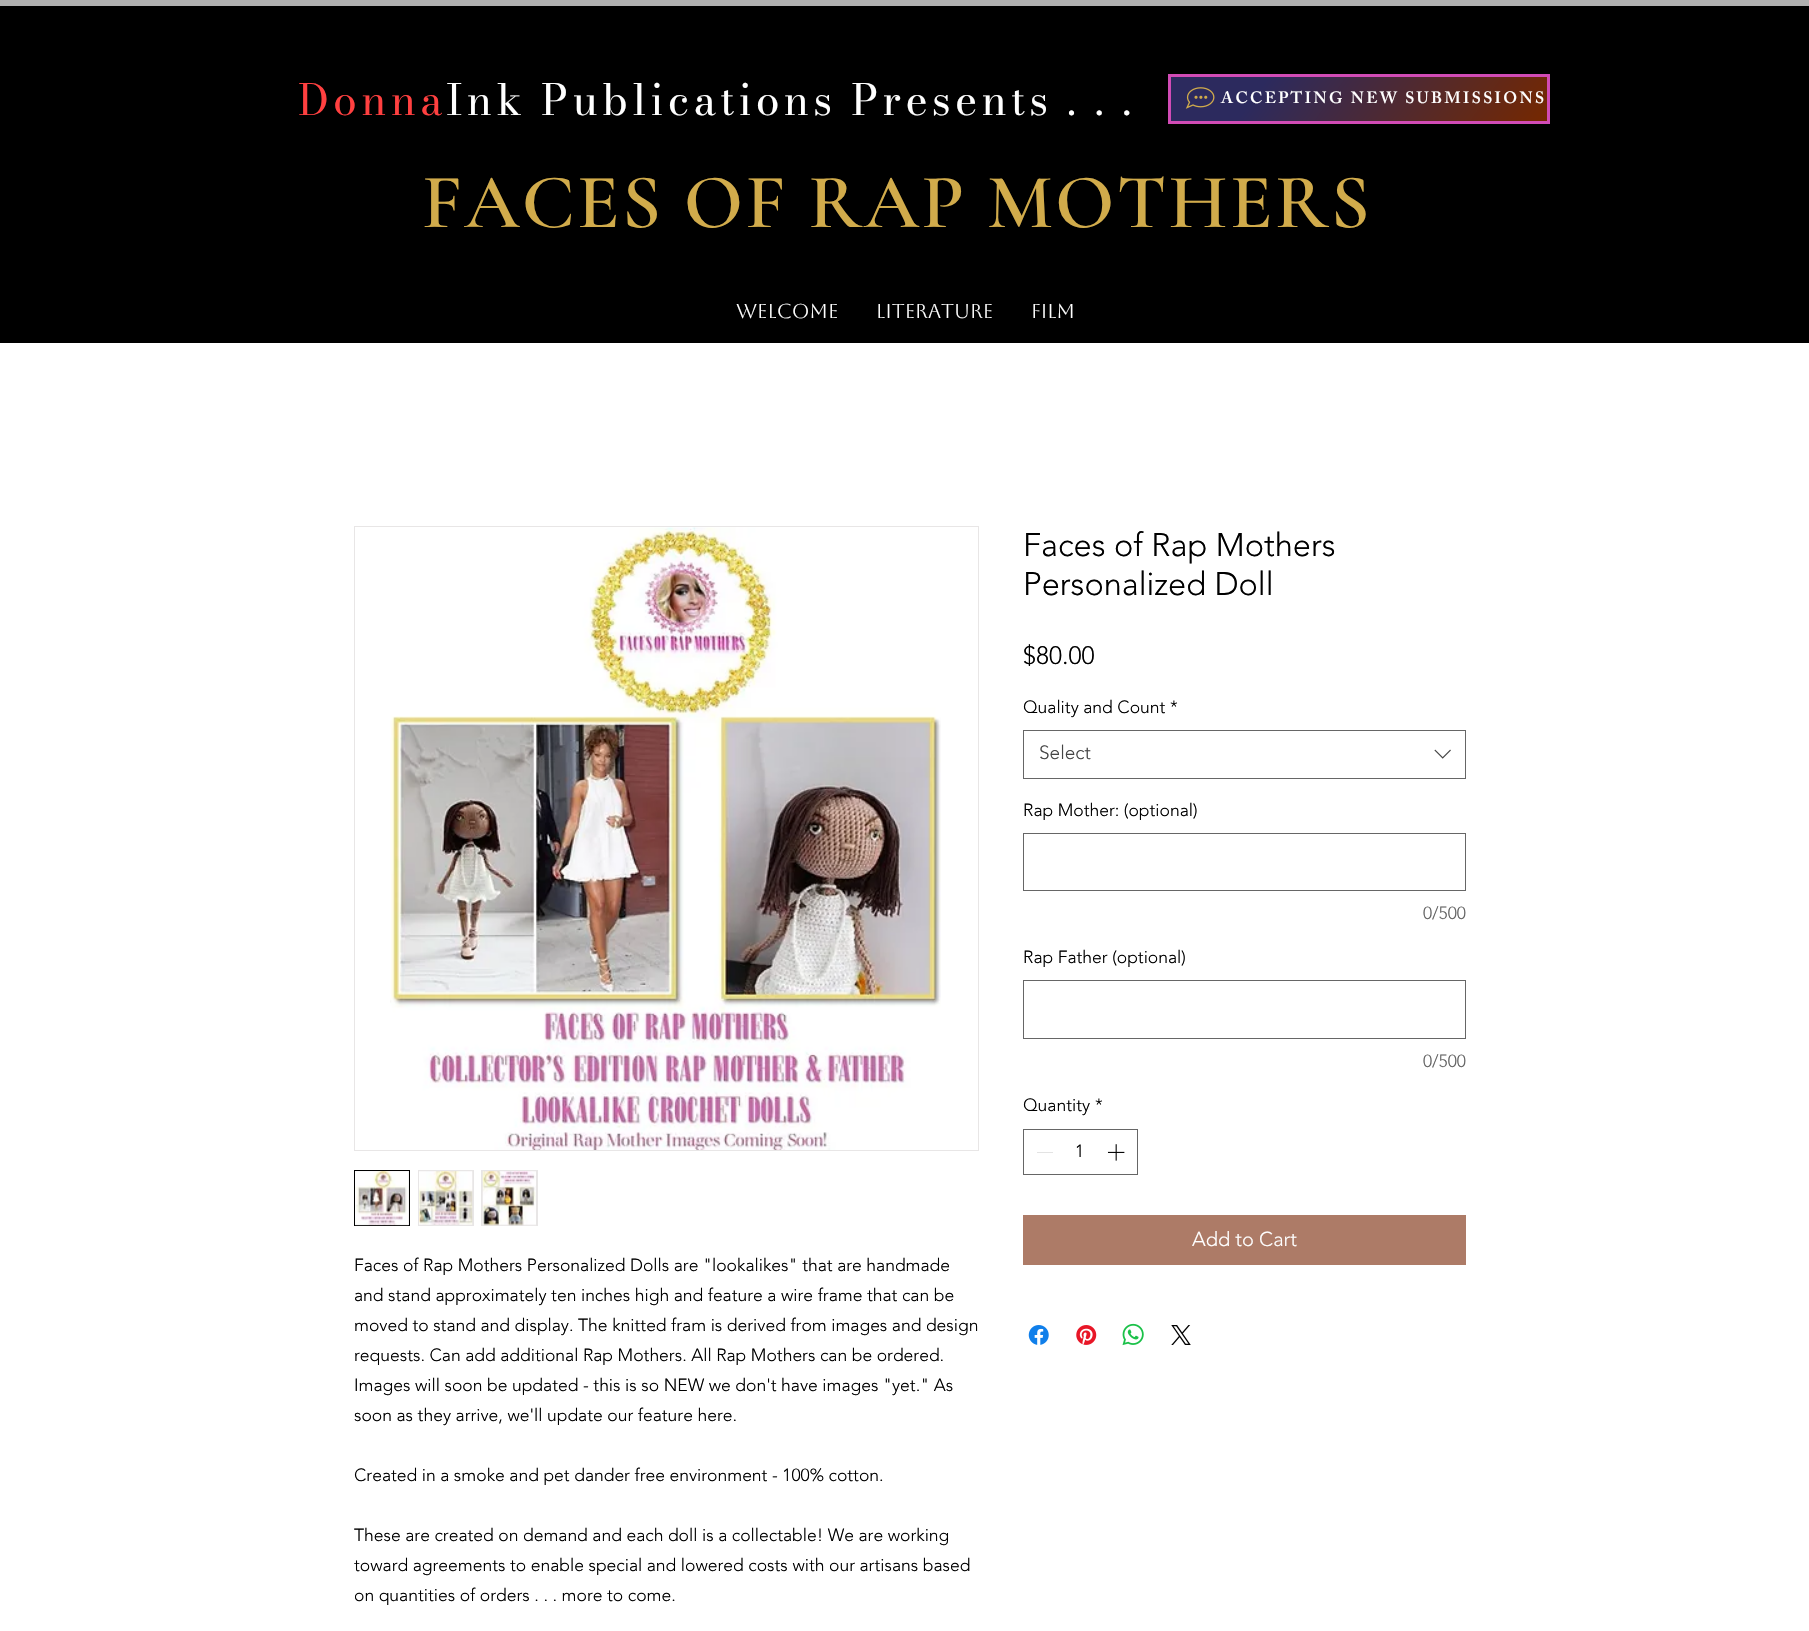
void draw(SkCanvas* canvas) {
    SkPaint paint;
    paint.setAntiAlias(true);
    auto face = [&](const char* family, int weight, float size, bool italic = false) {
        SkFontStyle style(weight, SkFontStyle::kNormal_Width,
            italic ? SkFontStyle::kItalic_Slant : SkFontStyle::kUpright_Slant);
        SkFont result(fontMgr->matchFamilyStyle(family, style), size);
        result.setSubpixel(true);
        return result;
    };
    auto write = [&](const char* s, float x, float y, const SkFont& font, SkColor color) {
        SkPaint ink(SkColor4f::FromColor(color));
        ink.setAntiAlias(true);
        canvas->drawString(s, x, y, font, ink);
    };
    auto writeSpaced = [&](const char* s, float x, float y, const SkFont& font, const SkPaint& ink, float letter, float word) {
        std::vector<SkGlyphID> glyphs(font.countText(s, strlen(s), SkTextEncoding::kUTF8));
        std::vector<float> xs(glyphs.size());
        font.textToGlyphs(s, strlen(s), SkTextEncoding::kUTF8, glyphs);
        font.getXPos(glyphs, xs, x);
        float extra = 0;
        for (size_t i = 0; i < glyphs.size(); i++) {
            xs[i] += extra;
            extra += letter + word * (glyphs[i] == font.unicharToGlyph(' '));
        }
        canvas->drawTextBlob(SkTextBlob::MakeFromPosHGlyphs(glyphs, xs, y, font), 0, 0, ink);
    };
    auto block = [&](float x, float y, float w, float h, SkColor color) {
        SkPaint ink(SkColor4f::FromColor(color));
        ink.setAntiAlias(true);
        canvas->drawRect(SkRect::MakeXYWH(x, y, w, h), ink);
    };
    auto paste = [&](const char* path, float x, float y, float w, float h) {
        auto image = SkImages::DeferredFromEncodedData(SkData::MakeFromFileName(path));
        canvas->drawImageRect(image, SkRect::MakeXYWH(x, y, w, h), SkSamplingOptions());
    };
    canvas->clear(SK_ColorWHITE);
    block(0, 0, 1809, 6, SkColorSetRGB(176, 176, 176));
    block(0, 6, 1809, 337, SK_ColorBLACK);
    auto kFont1 = face("Bodoni Moda", 400, 42.5f);
    paint.setColor(SkColorSetRGB(255, 64, 64));
    writeSpaced("Donna", 298, 115, kFont1, paint, 4.25f, 0);
    paint.setColor(SK_ColorWHITE);
    writeSpaced("Ink Publications Presents . . .", 446, 115, kFont1, paint, 4.25f, 0);
    {
        const SkColor colors[] = {SkColorSetRGB(44, 42, 94), SkColorSetRGB(117, 40, 0)};
        const float stops[] = {0.24f, 1};
        const SkPoint ends[] = {{1225, 1.2f}, {1493, 196}};
        paint.setShader(SkGradientShader::MakeLinear(ends, colors, stops, 2, SkTileMode::kClamp));
        paint.setAlpha(255);
    }
    canvas->drawRect(SkRect::MakeXYWH(1171, 77, 376, 44), paint);
    paint.setStyle(SkPaint::kStroke_Style);
    paint.setStrokeWidth(3);
    paint.setShader(nullptr);
    paint.setColor(SkColorSetRGB(209, 75, 181));
    canvas->drawRect(SkRect::MakeXYWH(1169.5f, 75.5f, 379, 47), paint);
    paste("pic1.png", 1185, 87, 30, 22);
    auto kFont2 = face("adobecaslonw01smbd", 600, 16.25f);
    paint.setStyle(SkPaint::kFill_Style);
    paint.setColor(SK_ColorWHITE);
    writeSpaced("ACCEPTING NEW SUBMISSIONS", 1221, 103, kFont2, paint, 2.4f, 0);
    auto kFont3 = face("Cormorant Garamond", 600, 77.5f);
    paint.setColor(SkColorSetRGB(209, 171, 75));
    writeSpaced("FACES OF RAP MOTHERS", 422, 227, kFont3, paint, 2.3f, 0);
    auto kFont4 = face("Aboreto", 400, 20);
    write("WELCOME", 736, 318, kFont4, SK_ColorWHITE);
    write("LITERATURE", 876, 318, kFont4, SK_ColorWHITE);
    write("FILM", 1031, 318, kFont4, SK_ColorWHITE);
    auto kFont5 = face("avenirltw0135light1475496", 300, 32.5f);
    write("Faces of Rap Mothers", 1023, 556, kFont5, SK_ColorBLACK);
    write("Personalized Doll", 1023, 595, kFont5, SK_ColorBLACK);
    auto kFont6 = face("avenirltw0135light1475496", 300, 25);
    write("$80.00", 1023, 664, kFont6, SK_ColorBLACK);
    auto kFont7 = face("avenirltw0135light1475496", 300, 17.5f);
    write("Quality and Count", 1023, 713, kFont7, SK_ColorBLACK);
    write("*", 1170, 713, kFont7, SK_ColorBLACK);
    paint.setStyle(SkPaint::kStroke_Style);
    paint.setStrokeWidth(1);
    paint.setColor(SkColorSetRGB(102, 102, 102));
    canvas->drawRect(SkRect::MakeXYWH(1023.5f, 730.5f, 442, 48), paint);
    auto kFont8 = face("avenirltw0135light1475496", 300, 19);
    write("Select", 1039, 759, kFont8, SkColorSetRGB(68, 68, 68));
    paste("pic2.png", 1434, 749, 17, 10);
    write("Rap Mother: (optional)", 1023, 816, kFont7, SK_ColorBLACK);
    canvas->drawRect(SkRect::MakeXYWH(1023.5f, 833.5f, 442, 57), paint);
    write("0/500", 1423, 919, kFont7, SkColorSetRGB(99, 99, 99));
    write("Rap Father (optional)", 1023, 963, kFont7, SK_ColorBLACK);
    canvas->drawRect(SkRect::MakeXYWH(1023.5f, 980.5f, 442, 58), paint);
    write("0/500", 1423, 1067, kFont7, SkColorSetRGB(99, 99, 99));
    write("Quantity", 1023, 1111, kFont7, SK_ColorBLACK);
    write("*", 1095, 1111, kFont7, SK_ColorBLACK);
    canvas->drawRect(SkRect::MakeXYWH(1023.5f, 1129.5f, 114, 45), paint);
    block(1037, 1152, 16, 1, SkColorSetRGB(227, 227, 227));
    write("1", 1075, 1157, kFont7, SK_ColorBLACK);
    paste("pic3.png", 1107, 1144, 18, 17);
    block(1023, 1215, 443, 50, SkColorSetRGB(173, 123, 103));
    auto kFont9 = face("avenirltw0135light1475496", 300, 20);
    write("Add to Cart", 1192, 1246, kFont9, SK_ColorWHITE);
    paste("pic4.png", 1028, 1325, 21, 20);
    paste("pic5.png", 1076, 1325, 21, 20);
    paste("pic6.png", 1122, 1323, 22, 23);
    paste("pic7.png", 1171, 1325, 20, 20);
    paint.setColor(SkColorSetRGB(232, 230, 230));
    canvas->drawRect(SkRect::MakeXYWH(354.5f, 526.5f, 624, 624), paint);
    paste("pic8.png", 390, 527, 551, 623);
    paint.setStyle(SkPaint::kFill_Style);
    canvas->drawRect(SkRect::MakeXYWH(354.5f, 1170.5f, 55, 55), paint);
    paint.setStyle(SkPaint::kStroke_Style);
    paint.setColor(SK_ColorBLACK);
    canvas->drawRect(SkRect::MakeXYWH(354.5f, 1170.5f, 55, 55), paint);
    paste("pic9.png", 355, 1171, 54, 55);
    block(418, 1170, 56, 56, SkColorSetRGB(232, 230, 230));
    paste("pic10.png", 419, 1171, 54, 54);
    block(481, 1170, 57, 56, SkColorSetRGB(232, 230, 230));
    paste("pic11.png", 482, 1171, 54, 55);
    write("Faces of Rap Mothers Personalized Dolls are \"lookalikes\" that are handmade", 354, 1271, kFont7, SK_ColorBLACK);
    write("and stand approximately ten inches high and feature a wire frame that can be", 354, 1301, kFont7, SK_ColorBLACK);
    write("moved to stand and display. The knitted fram is derived from images and design", 354, 1331, kFont7, SK_ColorBLACK);
    write("requests. Can add additional Rap Mothers. All Rap Mothers can be ordered.", 354, 1361, kFont7, SK_ColorBLACK);
    write("Images will soon be updated - this is so NEW we don't have images \"yet.\" As", 354, 1391, kFont7, SK_ColorBLACK);
    write("soon as they arrive, we'll update our feature here.", 354, 1421, kFont7, SK_ColorBLACK);
    write("Created in a smoke and pet dander free environment - 100% cotton.", 354, 1481, kFont7, SK_ColorBLACK);
    write("These are created on demand and each doll is a collectable! We are working", 354, 1541, kFont7, SK_ColorBLACK);
    write("toward agreements to enable special and lowered costs with our artisans based", 354, 1571, kFont7, SK_ColorBLACK);
    write("on quantities of orders . . . more to come.", 354, 1601, kFont7, SK_ColorBLACK);
}
